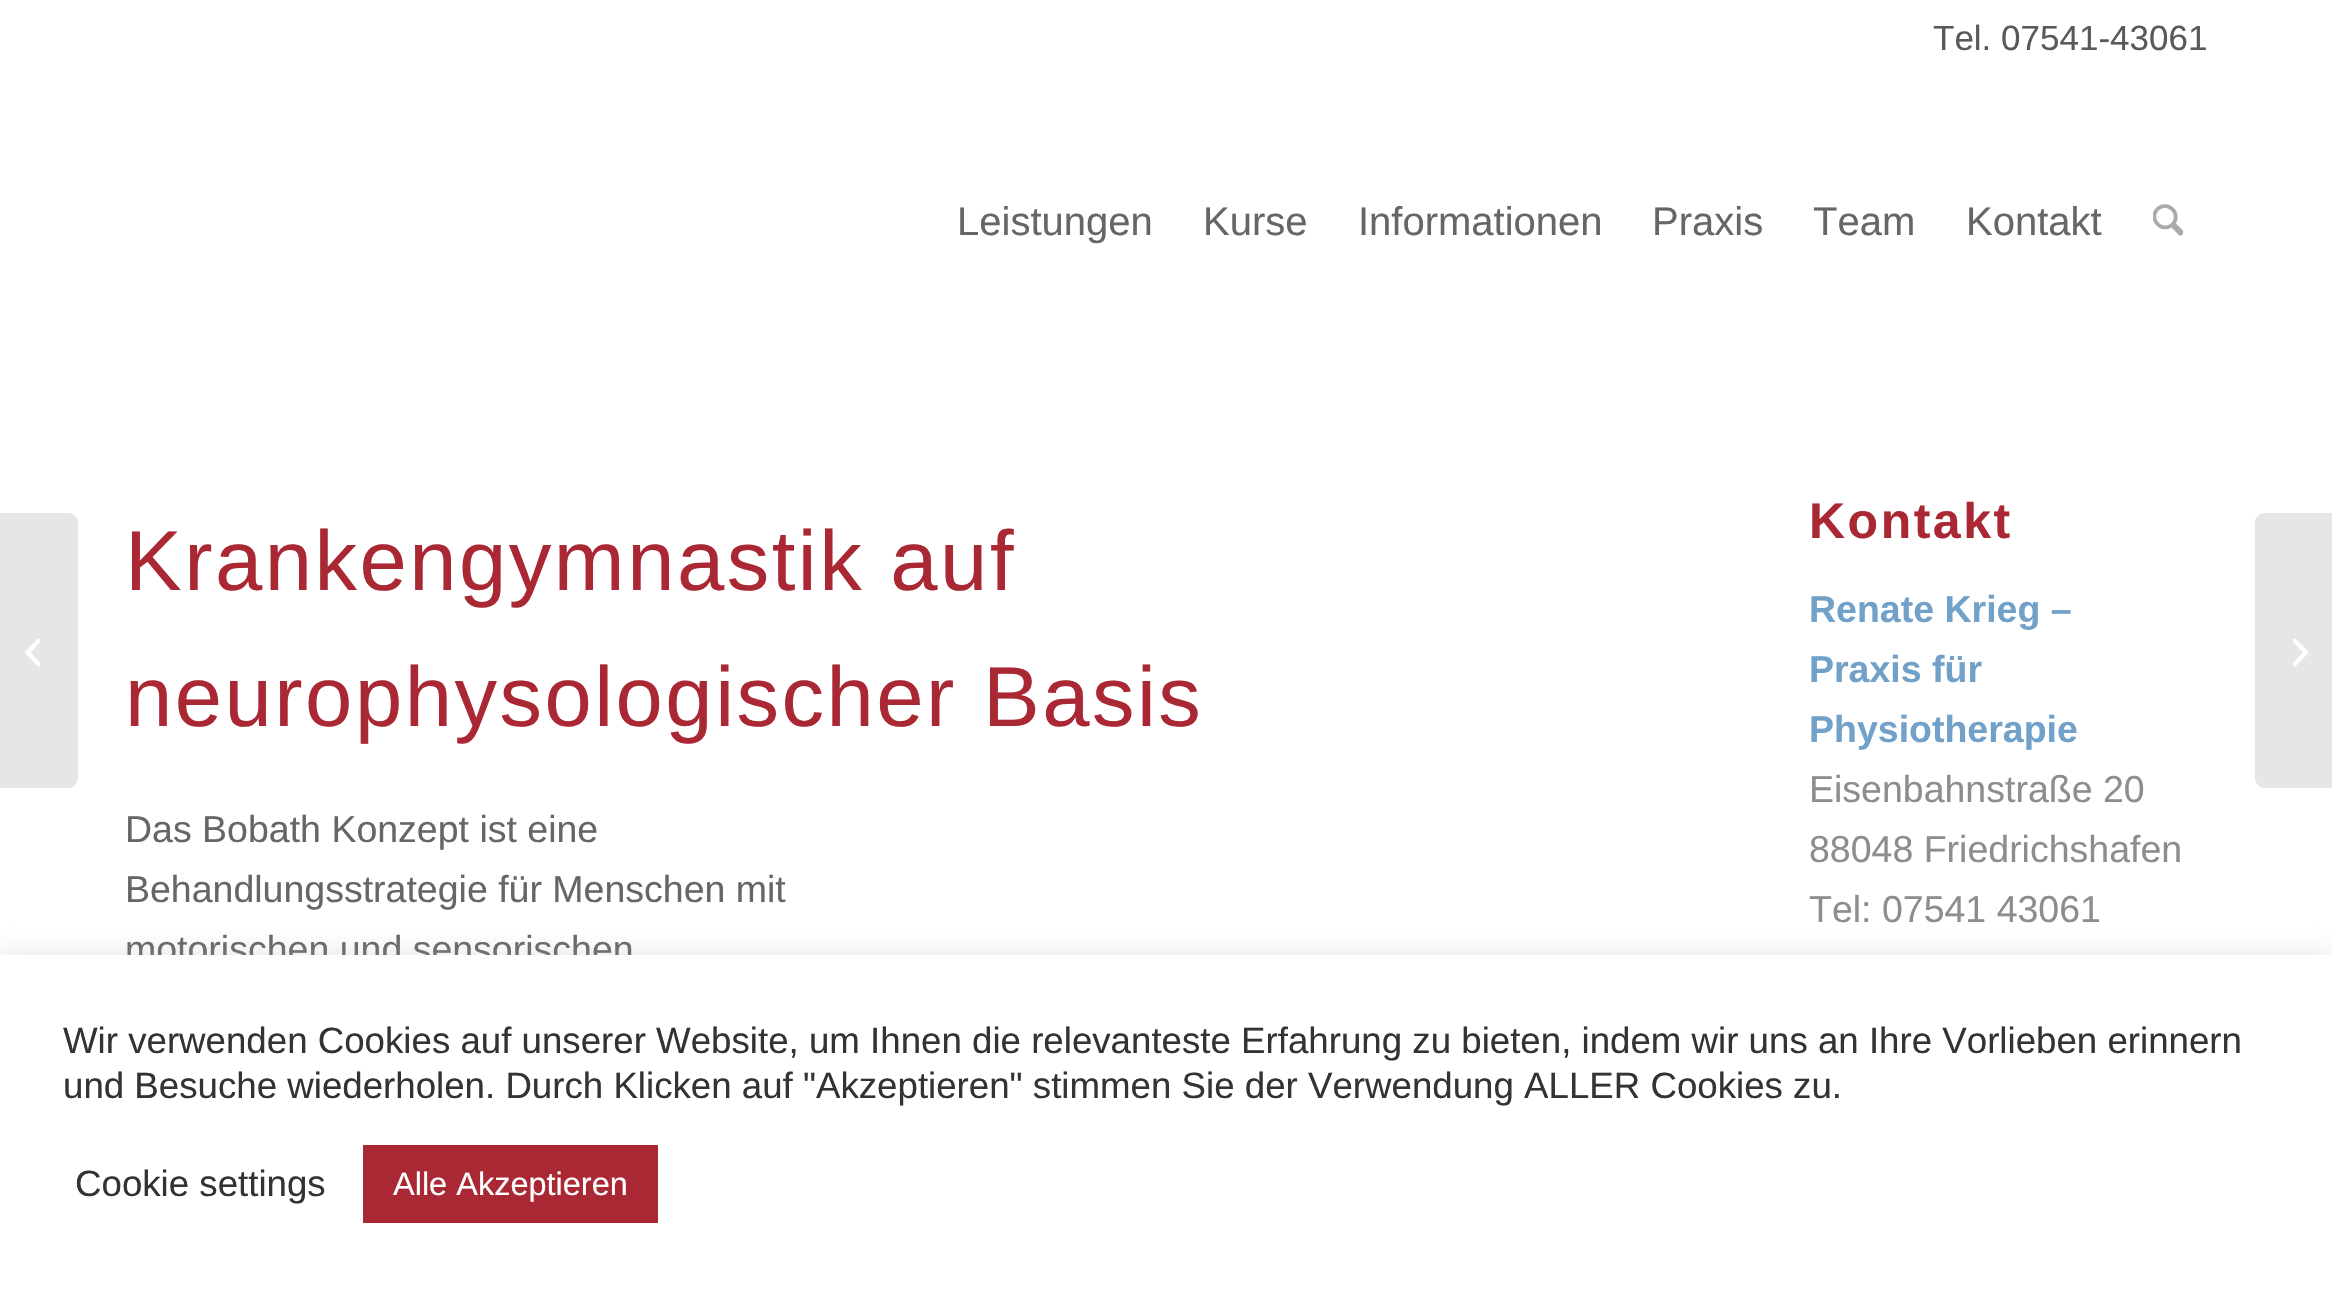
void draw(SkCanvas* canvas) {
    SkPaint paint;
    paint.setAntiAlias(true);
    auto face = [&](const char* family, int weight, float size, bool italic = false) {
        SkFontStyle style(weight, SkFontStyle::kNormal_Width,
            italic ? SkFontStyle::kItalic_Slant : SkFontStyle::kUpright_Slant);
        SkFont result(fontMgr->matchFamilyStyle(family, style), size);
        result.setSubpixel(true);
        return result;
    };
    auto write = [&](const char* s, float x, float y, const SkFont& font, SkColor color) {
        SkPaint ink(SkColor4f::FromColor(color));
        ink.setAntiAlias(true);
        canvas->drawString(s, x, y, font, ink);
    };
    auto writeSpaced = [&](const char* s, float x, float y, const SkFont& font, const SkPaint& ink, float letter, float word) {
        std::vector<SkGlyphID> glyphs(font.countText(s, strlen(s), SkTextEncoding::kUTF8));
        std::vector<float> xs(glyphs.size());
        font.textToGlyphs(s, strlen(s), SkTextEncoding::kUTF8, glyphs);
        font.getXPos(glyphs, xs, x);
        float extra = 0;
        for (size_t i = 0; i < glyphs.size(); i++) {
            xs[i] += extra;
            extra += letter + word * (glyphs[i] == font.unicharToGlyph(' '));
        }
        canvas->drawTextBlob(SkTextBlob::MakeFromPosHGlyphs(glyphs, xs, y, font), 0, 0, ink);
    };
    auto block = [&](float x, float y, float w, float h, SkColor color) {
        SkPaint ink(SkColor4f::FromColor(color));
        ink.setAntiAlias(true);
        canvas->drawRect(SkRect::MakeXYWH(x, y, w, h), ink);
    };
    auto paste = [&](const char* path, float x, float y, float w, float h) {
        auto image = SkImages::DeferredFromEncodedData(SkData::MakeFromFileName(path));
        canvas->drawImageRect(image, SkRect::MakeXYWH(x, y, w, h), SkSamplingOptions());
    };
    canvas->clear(SK_ColorWHITE);
    auto kFont1 = face("Liberation Sans", 400, 35);
    write("Tel. 07541-43061", 1933, 50, kFont1, SkColorSetRGB(89, 89, 89));
    auto kFont2 = face("Liberation Sans", 400, 40);
    write("Leistungen", 957, 235, kFont2, SkColorSetRGB(102, 102, 102));
    write("Kurse", 1203, 235, kFont2, SkColorSetRGB(102, 102, 102));
    write("Informationen", 1358, 235, kFont2, SkColorSetRGB(102, 102, 102));
    write("Praxis", 1652, 235, kFont2, SkColorSetRGB(102, 102, 102));
    write("Team", 1813, 235, kFont2, SkColorSetRGB(102, 102, 102));
    write("Kontakt", 1966, 235, kFont2, SkColorSetRGB(102, 102, 102));
    paste("pic1.png", 2153, 204, 30, 32);
    paint.setColor(SkColorSetRGB(230, 230, 230));
    canvas->drawPath(SkPathBuilder().moveTo(0, 513).lineTo(68, 513).cubicTo(73.5f, 513, 78, 517.5f, 78, 523).lineTo(78, 778).cubicTo(78, 783.5f, 73.5f, 788, 68, 788).lineTo(0, 788).close().detach(), paint);
    paste("pic2.png", 25, 638, 15, 29);
    auto kFont3 = face("Liberation Sans", 400, 85);
    paint.setColor(SkColorSetRGB(170, 40, 51));
    writeSpaced("Krankengymnastik auf", 125, 590, kFont3, paint, 2.5f, 0);
    writeSpaced("neurophysologischer Basis", 125, 726, kFont3, paint, 2.5f, 0);
    auto kFont4 = face("Liberation Sans", 400, 37.5f);
    write("Das Bobath Konzept ist eine", 125, 842, kFont4, SkColorSetRGB(102, 102, 102));
    write("Behandlungsstrategie für Menschen mit", 125, 902, kFont4, SkColorSetRGB(102, 102, 102));
    write("motorischen und sensorischen", 125, 962, kFont4, SkColorSetRGB(102, 102, 102));
    auto kFont5 = face("Liberation Sans", 700, 50);
    writeSpaced("Kontakt", 1809, 538, kFont5, paint, 2.5f, 0);
    auto kFont6 = face("Liberation Sans", 700, 37.5f);
    write("Renate Krieg –", 1809, 622, kFont6, SkColorSetRGB(113, 161, 201));
    write("Praxis für", 1809, 682, kFont6, SkColorSetRGB(113, 161, 201));
    write("Physiotherapie", 1809, 742, kFont6, SkColorSetRGB(113, 161, 201));
    write("Eisenbahnstraße 20", 1809, 802, kFont4, SkColorSetRGB(141, 141, 141));
    write("88048 Friedrichshafen", 1809, 862, kFont4, SkColorSetRGB(141, 141, 141));
    write("Tel: 07541 43061", 1809, 922, kFont4, SkColorSetRGB(141, 141, 141));
    paint.setColor(SkColorSetRGB(230, 230, 230));
    canvas->drawPath(SkPathBuilder().moveTo(2265, 513).lineTo(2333, 513).lineTo(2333, 788).lineTo(2265, 788).cubicTo(2259.5f, 788, 2255, 783.5f, 2255, 778).lineTo(2255, 523).cubicTo(2255, 517.5f, 2259.5f, 513, 2265, 513).close().detach(), paint);
    paste("pic3.png", 2293, 638, 15, 29);
    paint.setColor(SkColorSetARGB(77, 172, 171, 171));
    paint.setMaskFilter(SkMaskFilter::MakeBlur(kNormal_SkBlurStyle, 12.5f));
    canvas->drawRect(SkRect::MakeXYWH(0, 953, 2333, 342), paint);
    paint.setMaskFilter(nullptr);
    block(0, 955, 2332, 341, SK_ColorWHITE);
    auto kFont7 = face("Liberation Sans", 400, 36.67f);
    write("Wir verwenden Cookies auf unserer Website, um Ihnen die relevanteste Erfahrung zu bieten, indem wir uns an Ihre Vorlieben erinnern", 63, 1053, kFont7, SkColorSetRGB(51, 51, 51));
    write("und Besuche wiederholen. Durch Klicken auf \"Akzeptieren\" stimmen Sie der Verwendung ALLER Cookies zu.", 63, 1098, kFont7, SkColorSetRGB(51, 51, 51));
    write("Cookie settings", 75, 1196, kFont7, SkColorSetRGB(51, 51, 51));
    block(363, 1145, 295, 78, SkColorSetRGB(170, 40, 51));
    auto kFont8 = face("Liberation Sans", 400, 32.5f);
    write("Alle Akzeptieren", 393, 1195, kFont8, SK_ColorWHITE);
}
